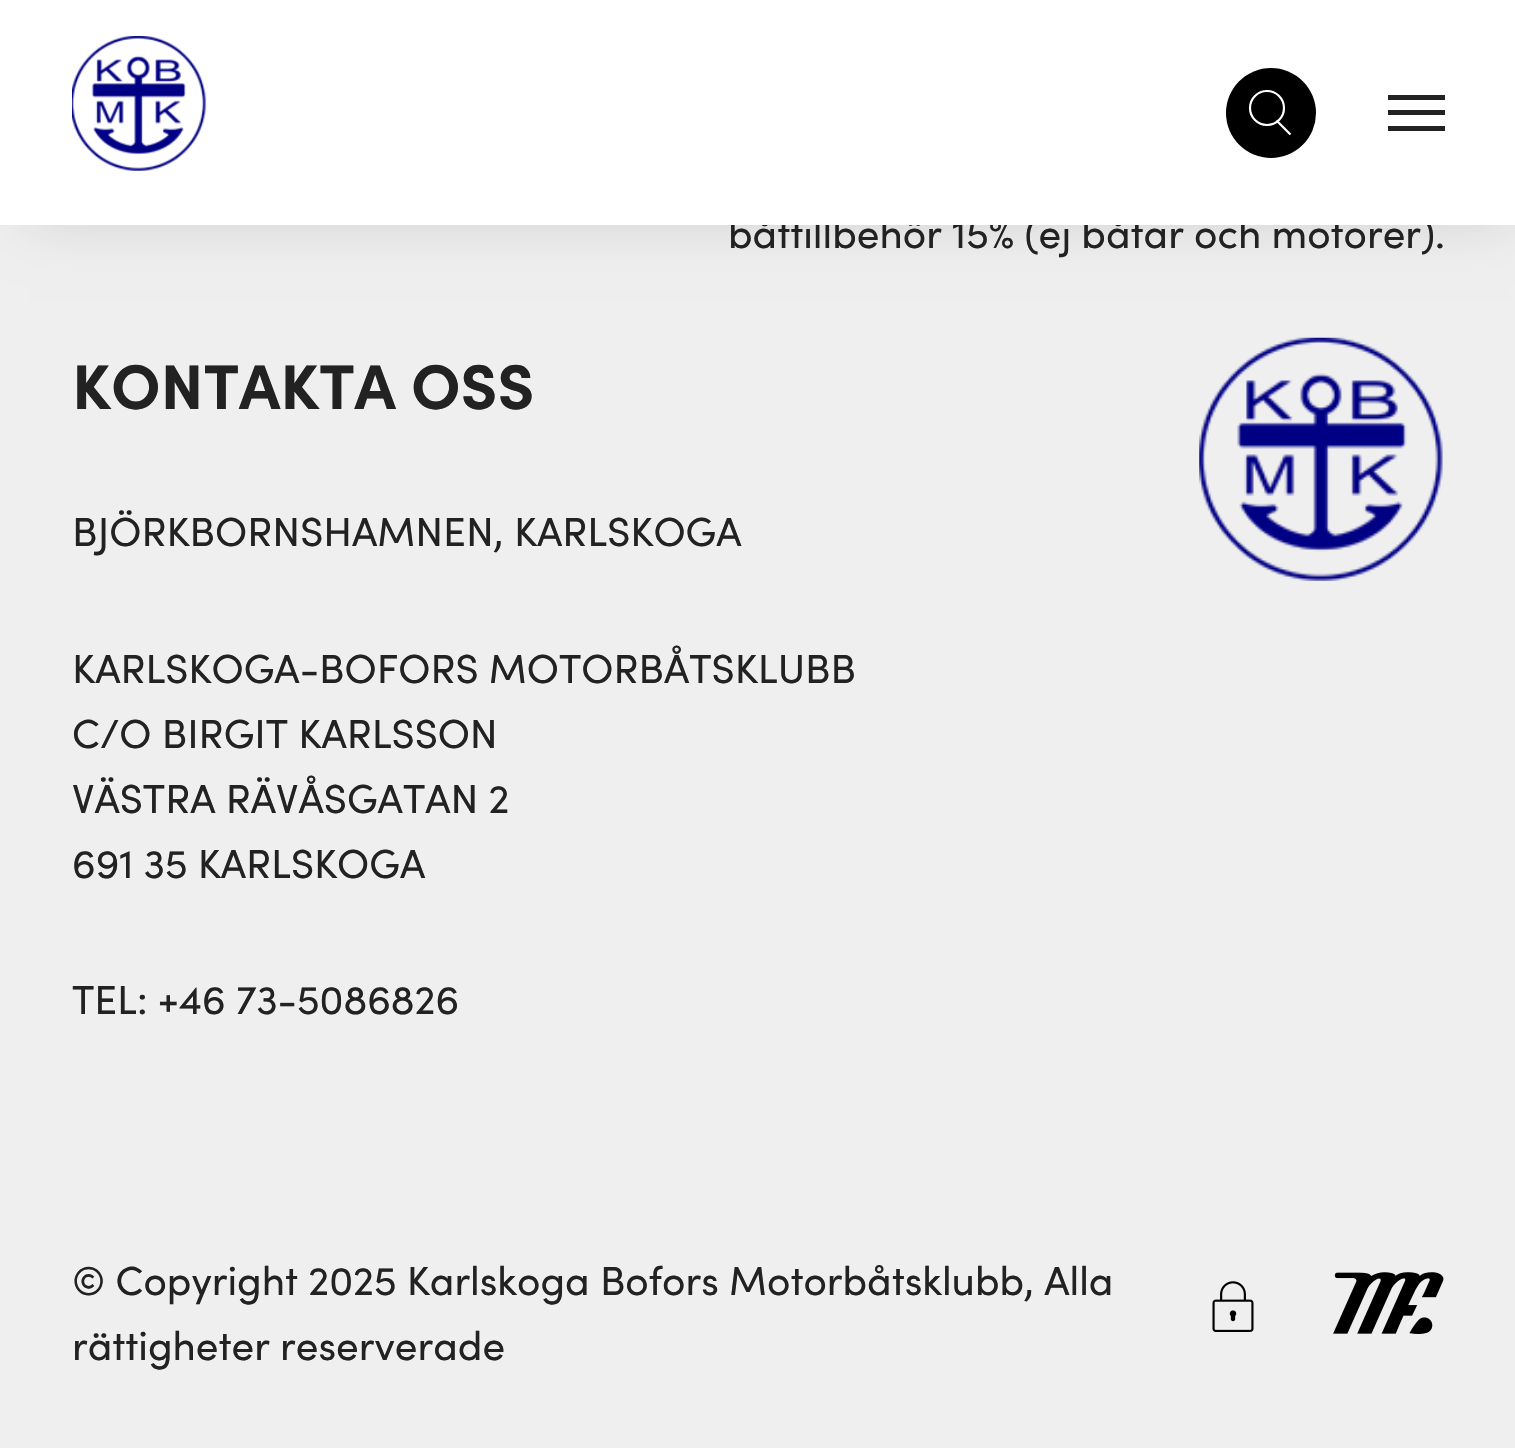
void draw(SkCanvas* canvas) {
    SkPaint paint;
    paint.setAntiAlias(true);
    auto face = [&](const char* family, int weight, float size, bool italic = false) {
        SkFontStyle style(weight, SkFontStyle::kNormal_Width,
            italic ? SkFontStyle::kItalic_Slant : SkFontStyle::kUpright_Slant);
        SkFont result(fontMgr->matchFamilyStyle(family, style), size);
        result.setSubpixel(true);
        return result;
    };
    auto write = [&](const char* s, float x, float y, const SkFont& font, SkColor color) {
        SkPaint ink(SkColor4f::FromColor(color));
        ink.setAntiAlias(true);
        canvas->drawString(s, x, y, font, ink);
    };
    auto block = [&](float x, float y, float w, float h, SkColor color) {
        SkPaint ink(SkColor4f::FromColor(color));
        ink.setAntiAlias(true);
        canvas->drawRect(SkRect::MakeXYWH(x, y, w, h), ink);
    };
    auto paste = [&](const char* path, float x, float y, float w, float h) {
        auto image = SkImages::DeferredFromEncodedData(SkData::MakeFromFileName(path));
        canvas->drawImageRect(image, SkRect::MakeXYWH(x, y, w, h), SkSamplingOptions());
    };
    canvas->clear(SkColorSetRGB(239, 239, 239));
    paint.setColor(SkColorSetARGB(38, 0, 0, 0));
    paint.setMaskFilter(SkMaskFilter::MakeBlur(kNormal_SkBlurStyle, 28));
    canvas->drawRect(SkRect::MakeXYWH(29, 29, 1481, 189), paint);
    paint.setMaskFilter(nullptr);
    auto kFont1 = face("Sofia", 400, 40.5f);
    write("båttillbehör 15% (ej båtar och motorer).", 728, 248, kFont1, SkColorSetRGB(34, 34, 34));
    block(0, 0, 1515, 225, SK_ColorWHITE);
    paste("pic1.png", 72, 36, 135, 135);
    paint.setColor(SK_ColorBLACK);
    canvas->drawCircle(1271, 113, 45, paint);
    paint.setStyle(SkPaint::kStroke_Style);
    paint.setStrokeWidth(2.2f);
    paint.setColor(SK_ColorWHITE);
    canvas->drawCircle(1267, 108, 17, paint);
    canvas->drawPath(SkPathBuilder().moveTo(1276.5f, 120.5f).lineTo(1290.5f, 134.5f).detach(), paint);
    block(1388, 110, 57, 5, SkColorSetRGB(34, 34, 34));
    block(1388, 95, 57, 5, SkColorSetRGB(34, 34, 34));
    block(1388, 126, 57, 5, SkColorSetRGB(34, 34, 34));
    auto kFont2 = face("Sofia", 700, 63.25f);
    write("KONTAKTA OSS", 72, 409, kFont2, SkColorSetRGB(34, 34, 34));
    write("BJÖRKBORNSHAMNEN, KARLSKOGA", 72, 546, kFont1, SkColorSetRGB(34, 34, 34));
    write("KARLSKOGA-BOFORS MOTORBÅTSKLUBB", 72, 683, kFont1, SkColorSetRGB(34, 34, 34));
    write("C/O BIRGIT KARLSSON", 72, 748, kFont1, SkColorSetRGB(34, 34, 34));
    write("VÄSTRA RÄVÅSGATAN 2", 72, 813, kFont1, SkColorSetRGB(34, 34, 34));
    write("691 35 KARLSKOGA", 72, 878, kFont1, SkColorSetRGB(34, 34, 34));
    write("TEL: +46 73-5086826", 72, 1014, kFont1, SkColorSetRGB(34, 34, 34));
    paste("pic2.png", 1199, 337, 244, 244);
    write("© Copyright 2025 Karlskoga Bofors Motorbåtsklubb, Alla", 72, 1295, kFont1, SkColorSetRGB(34, 34, 34));
    write("rättigheter reserverade", 72, 1360, kFont1, SkColorSetRGB(34, 34, 34));
    paste("pic3.png", 1212, 1281, 42, 51);
    paste("pic4.png", 1333, 1272, 111, 62);
}
